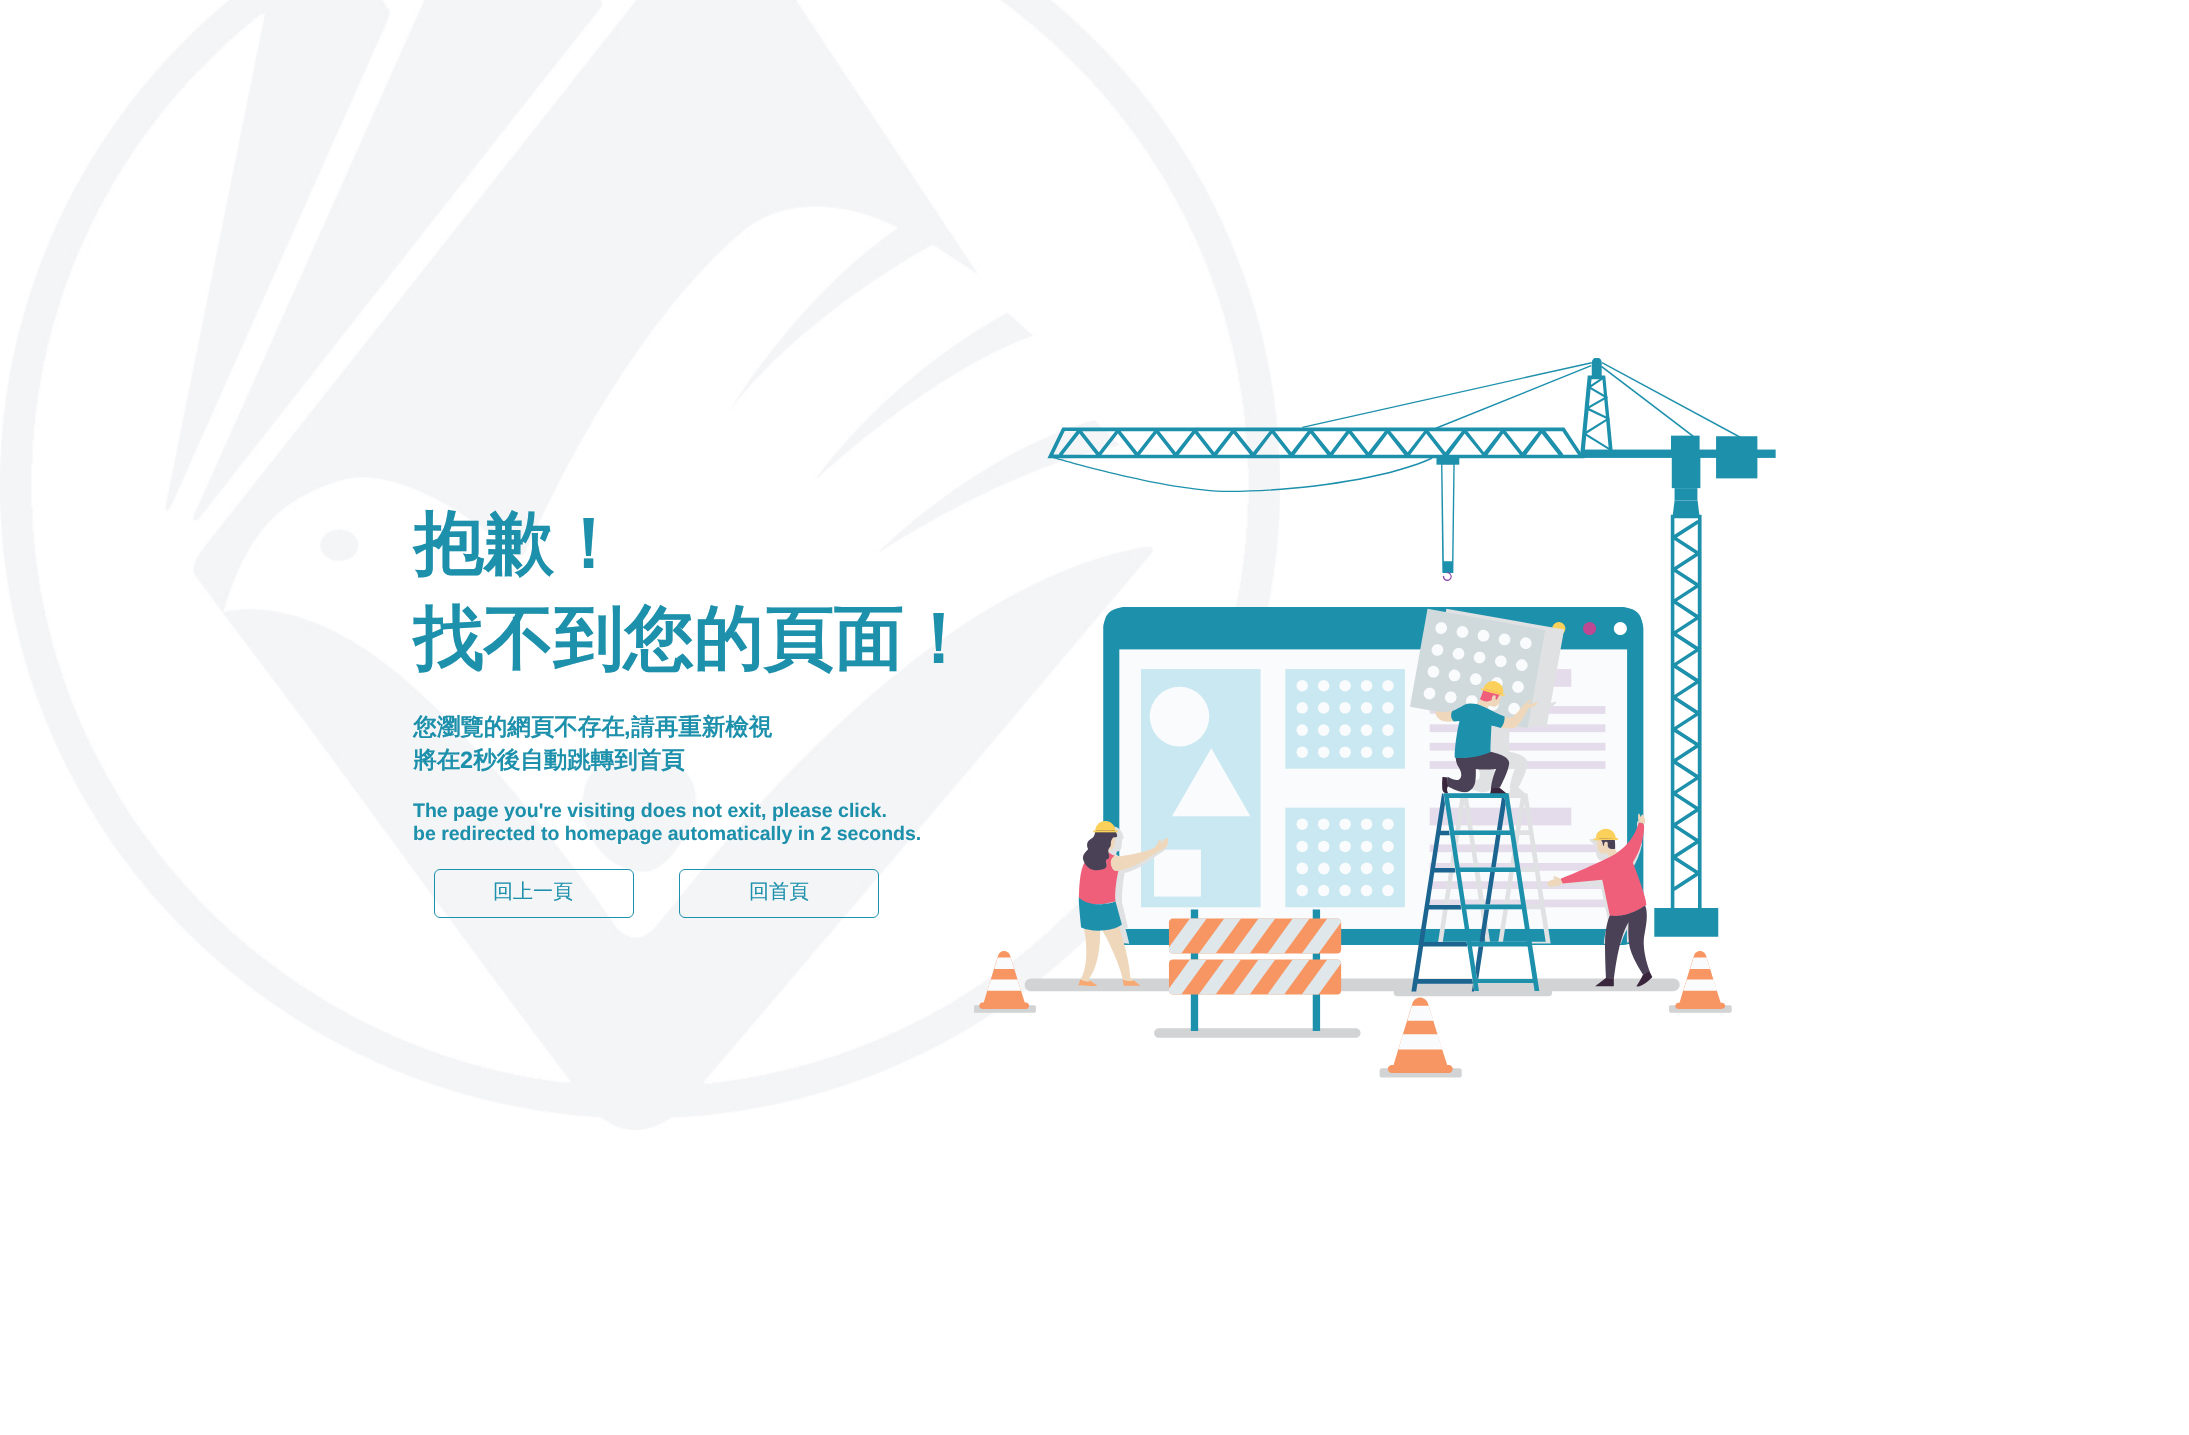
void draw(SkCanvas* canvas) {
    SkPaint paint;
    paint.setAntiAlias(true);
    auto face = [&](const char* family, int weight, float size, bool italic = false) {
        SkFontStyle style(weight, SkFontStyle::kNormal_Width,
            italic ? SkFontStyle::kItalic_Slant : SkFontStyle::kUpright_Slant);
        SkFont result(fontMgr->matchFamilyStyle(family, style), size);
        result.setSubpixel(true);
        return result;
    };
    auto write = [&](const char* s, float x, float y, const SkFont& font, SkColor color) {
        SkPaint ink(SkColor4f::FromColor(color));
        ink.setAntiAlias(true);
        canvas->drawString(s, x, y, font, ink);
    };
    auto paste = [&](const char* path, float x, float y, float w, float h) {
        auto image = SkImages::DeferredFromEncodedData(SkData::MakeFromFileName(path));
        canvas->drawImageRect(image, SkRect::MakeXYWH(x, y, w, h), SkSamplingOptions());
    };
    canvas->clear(SK_ColorWHITE);
    paste("pic1.png", 0, 0, 1280, 1130);
    auto kFont1 = face("WenQuanYi Zen Hei", 700, 70);
    write("抱歉！", 413, 568, kFont1, SkColorSetRGB(29, 144, 172));
    write("找不到您的頁面！", 413, 663, kFont1, SkColorSetRGB(29, 144, 172));
    auto kFont2 = face("WenQuanYi Zen Hei", 700, 23.5f);
    write("您瀏覽的網頁不存在", 413, 735, kFont2, SkColorSetRGB(29, 144, 172));
    auto kFont3 = face("Liberation Sans", 700, 23.5f);
    write(",", 624, 735, kFont3, SkColorSetRGB(29, 144, 172));
    write("請再重新檢視", 631, 735, kFont2, SkColorSetRGB(29, 144, 172));
    write("將在", 413, 768, kFont2, SkColorSetRGB(29, 144, 172));
    write("2", 460, 768, kFont3, SkColorSetRGB(29, 144, 172));
    write("秒後自動跳轉到首頁", 473, 768, kFont2, SkColorSetRGB(29, 144, 172));
    auto kFont4 = face("Liberation Sans", 700, 19.5f);
    write("The page you're visiting does not exit, please click.", 413, 817, kFont4, SkColorSetRGB(29, 144, 172));
    write("be redirected to homepage automatically in 2 seconds.", 413, 840, kFont4, SkColorSetRGB(29, 144, 172));
    paint.setStyle(SkPaint::kStroke_Style);
    paint.setStrokeWidth(1);
    paint.setColor(SkColorSetRGB(29, 144, 172));
    canvas->drawRoundRect(SkRect::MakeXYWH(434.5f, 869.5f, 199, 48), 5.5f, 5.5f, paint);
    auto kFont5 = face("WenQuanYi Zen Hei", 500, 20);
    write("回上一頁", 493, 898, kFont5, SkColorSetRGB(29, 144, 172));
    canvas->drawRoundRect(SkRect::MakeXYWH(679.5f, 869.5f, 199, 48), 5.5f, 5.5f, paint);
    write("回首頁", 749, 898, kFont5, SkColorSetRGB(29, 144, 172));
    paste("pic2.png", 974, 358, 802, 720);
}
